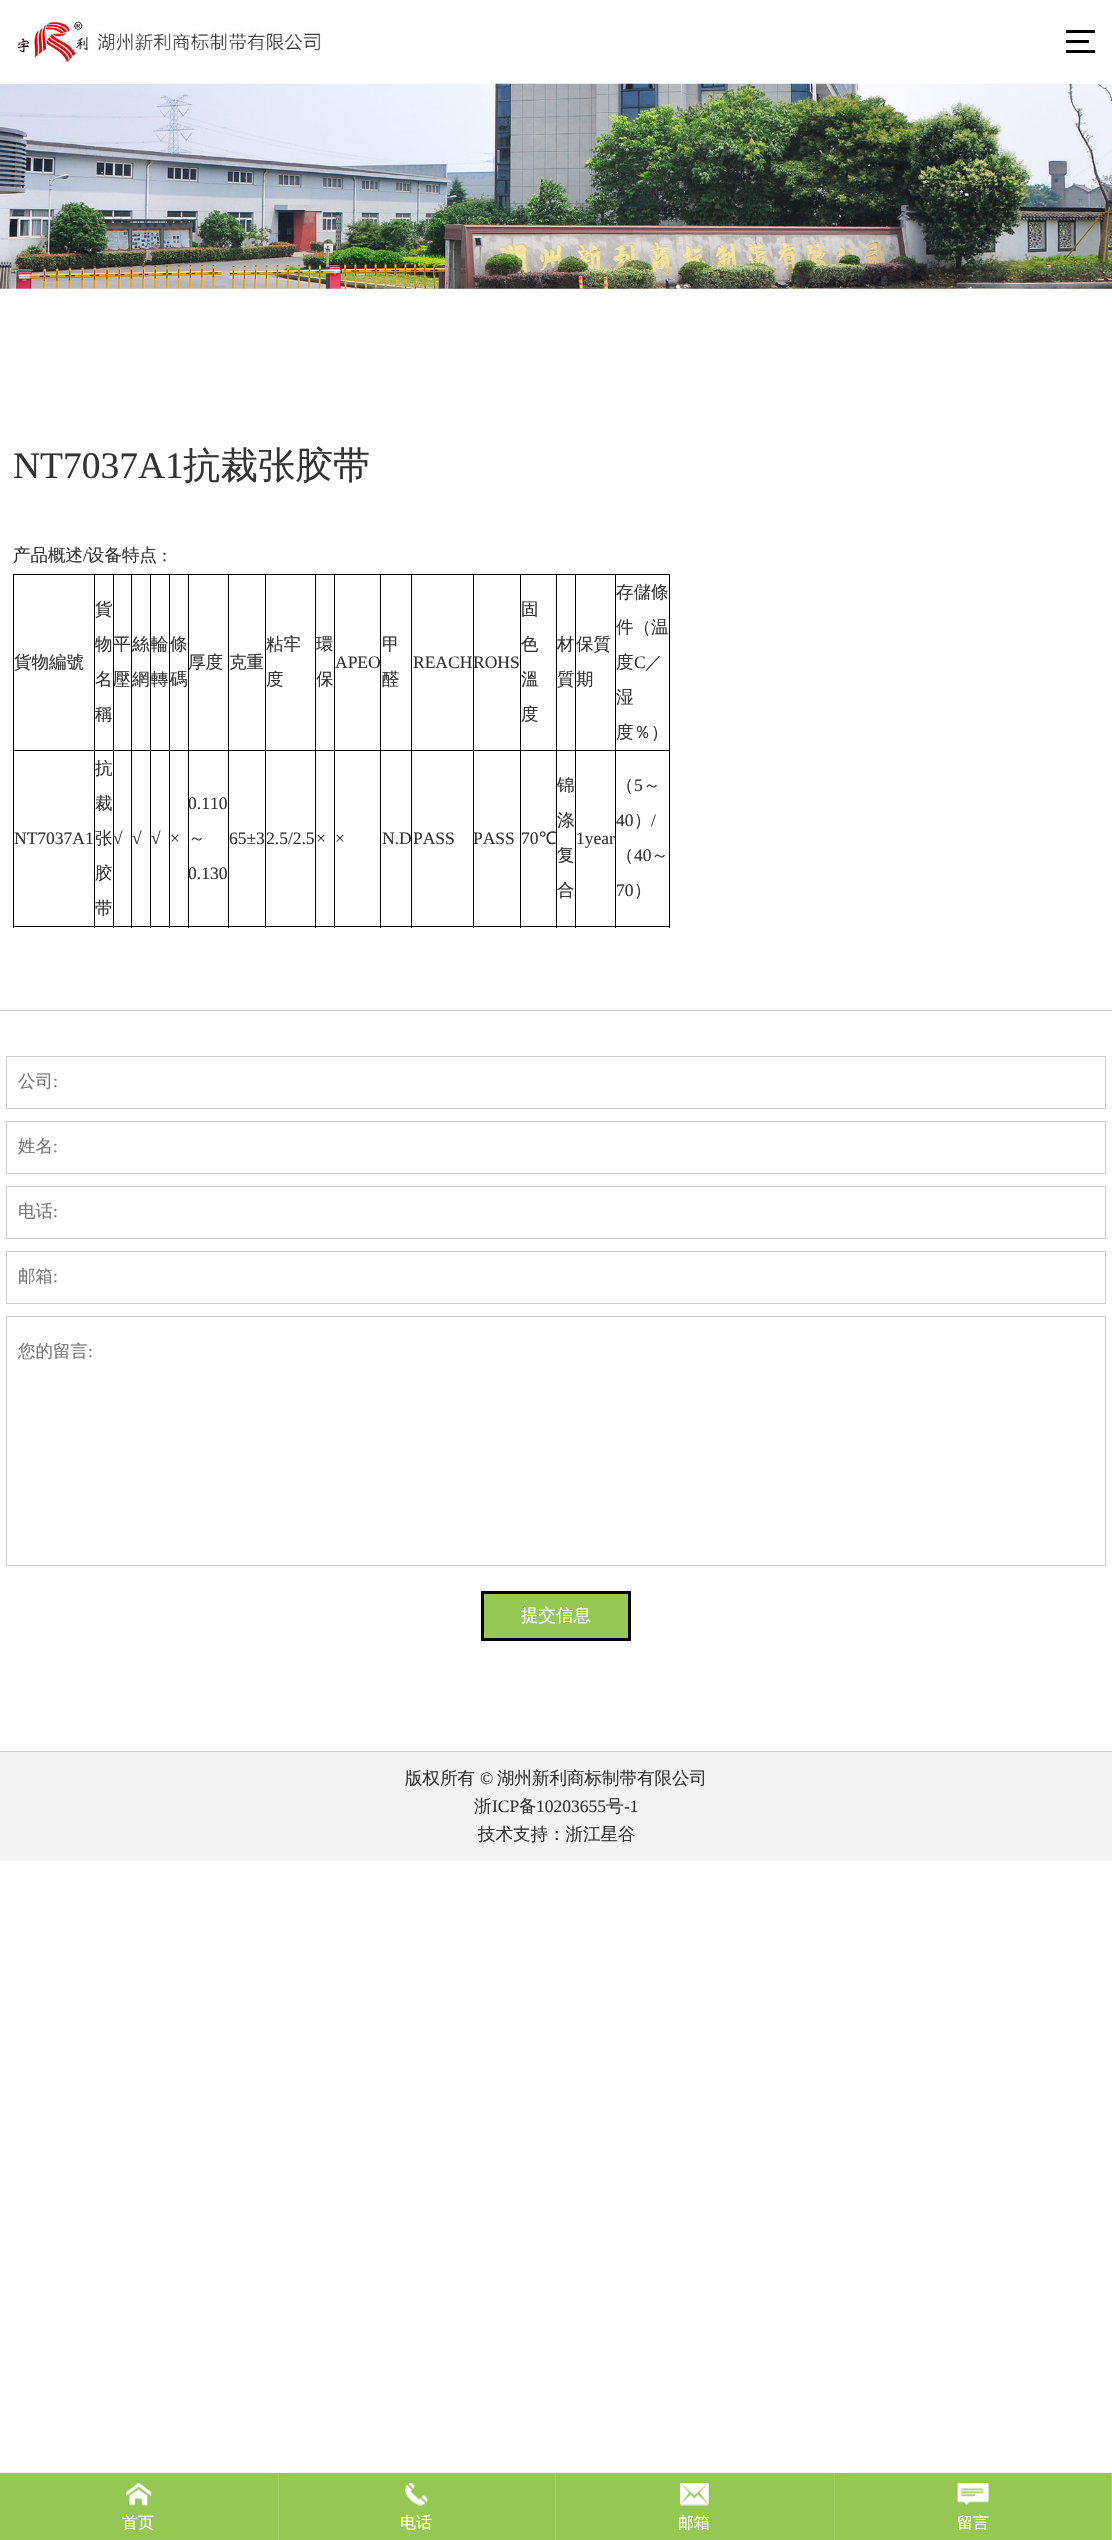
void draw(SkCanvas* canvas) {
    SkPaint paint;
    paint.setAntiAlias(true);
    auto face = [&](const char* family, int weight, float size, bool italic = false) {
        SkFontStyle style(weight, SkFontStyle::kNormal_Width,
            italic ? SkFontStyle::kItalic_Slant : SkFontStyle::kUpright_Slant);
        SkFont result(fontMgr->matchFamilyStyle(family, style), size);
        result.setSubpixel(true);
        return result;
    };
    auto write = [&](const char* s, float x, float y, const SkFont& font, SkColor color) {
        SkPaint ink(SkColor4f::FromColor(color));
        ink.setAntiAlias(true);
        canvas->drawString(s, x, y, font, ink);
    };
    auto block = [&](float x, float y, float w, float h, SkColor color) {
        SkPaint ink(SkColor4f::FromColor(color));
        ink.setAntiAlias(true);
        canvas->drawRect(SkRect::MakeXYWH(x, y, w, h), ink);
    };
    auto paste = [&](const char* path, float x, float y, float w, float h) {
        auto image = SkImages::DeferredFromEncodedData(SkData::MakeFromFileName(path));
        canvas->drawImageRect(image, SkRect::MakeXYWH(x, y, w, h), SkSamplingOptions());
    };
    canvas->clear(SK_ColorWHITE);
    paste("pic1.png", 17, 17, 304, 45);
    block(1066, 30, 29, 3, SK_ColorBLACK);
    block(1066, 40, 23, 3, SK_ColorBLACK);
    block(1066, 50, 29, 3, SK_ColorBLACK);
    paste("pic2.png", 0, 83, 1112, 206);
    auto kFont1 = face("Liberation Serif", 400, 37.5f);
    write("NT7037A1", 13, 478, kFont1, SkColorSetRGB(51, 51, 51));
    auto kFont2 = face("WenQuanYi Zen Hei", 500, 37.5f);
    write("抗裁张胶带", 183, 478, kFont2, SkColorSetRGB(51, 51, 51));
    auto kFont3 = face("WenQuanYi Zen Hei", 500, 17.5f);
    write("产品概述", 13, 561, kFont3, SkColorSetRGB(51, 51, 51));
    auto kFont4 = face("Liberation Serif", 400, 17.5f);
    write("/", 83, 561, kFont4, SkColorSetRGB(51, 51, 51));
    write("设备特点", 87, 561, kFont3, SkColorSetRGB(51, 51, 51));
    write(":", 162, 561, kFont4, SkColorSetRGB(51, 51, 51));
    block(13, 574, 657, 1, SK_ColorBLACK);
    block(669, 750, 1, 178, SK_ColorBLACK);
    block(669, 574, 1, 177, SK_ColorBLACK);
    block(615, 926, 55, 1, SK_ColorBLACK);
    block(615, 750, 1, 178, SK_ColorBLACK);
    block(615, 750, 55, 1, SK_ColorBLACK);
    block(615, 574, 1, 177, SK_ColorBLACK);
    block(575, 926, 41, 1, SK_ColorBLACK);
    block(575, 750, 1, 178, SK_ColorBLACK);
    block(575, 750, 41, 1, SK_ColorBLACK);
    block(575, 574, 1, 177, SK_ColorBLACK);
    block(556, 926, 20, 1, SK_ColorBLACK);
    block(556, 750, 1, 178, SK_ColorBLACK);
    block(556, 750, 20, 1, SK_ColorBLACK);
    block(556, 574, 1, 177, SK_ColorBLACK);
    block(520, 926, 38, 1, SK_ColorBLACK);
    block(520, 750, 1, 178, SK_ColorBLACK);
    block(520, 750, 38, 1, SK_ColorBLACK);
    block(520, 574, 1, 177, SK_ColorBLACK);
    block(473, 926, 48, 1, SK_ColorBLACK);
    block(473, 750, 1, 178, SK_ColorBLACK);
    block(473, 750, 48, 1, SK_ColorBLACK);
    block(473, 574, 1, 177, SK_ColorBLACK);
    block(411, 926, 63, 1, SK_ColorBLACK);
    block(411, 750, 1, 178, SK_ColorBLACK);
    block(411, 750, 63, 1, SK_ColorBLACK);
    block(411, 574, 1, 177, SK_ColorBLACK);
    block(380, 926, 33, 1, SK_ColorBLACK);
    block(380, 750, 1, 178, SK_ColorBLACK);
    block(380, 750, 33, 1, SK_ColorBLACK);
    block(380, 574, 1, 177, SK_ColorBLACK);
    block(334, 926, 47, 1, SK_ColorBLACK);
    block(334, 750, 1, 178, SK_ColorBLACK);
    block(334, 750, 47, 1, SK_ColorBLACK);
    block(334, 574, 1, 177, SK_ColorBLACK);
    block(315, 926, 20, 1, SK_ColorBLACK);
    block(315, 750, 1, 178, SK_ColorBLACK);
    block(315, 750, 20, 1, SK_ColorBLACK);
    block(315, 574, 1, 177, SK_ColorBLACK);
    block(265, 926, 51, 1, SK_ColorBLACK);
    block(265, 750, 1, 178, SK_ColorBLACK);
    block(265, 750, 51, 1, SK_ColorBLACK);
    block(265, 574, 1, 177, SK_ColorBLACK);
    block(228, 926, 38, 1, SK_ColorBLACK);
    block(228, 750, 1, 178, SK_ColorBLACK);
    block(228, 750, 38, 1, SK_ColorBLACK);
    block(228, 574, 1, 177, SK_ColorBLACK);
    block(188, 926, 41, 1, SK_ColorBLACK);
    block(188, 750, 1, 178, SK_ColorBLACK);
    block(188, 750, 41, 1, SK_ColorBLACK);
    block(188, 574, 1, 177, SK_ColorBLACK);
    block(169, 926, 20, 1, SK_ColorBLACK);
    block(169, 750, 1, 178, SK_ColorBLACK);
    block(169, 750, 20, 1, SK_ColorBLACK);
    block(169, 574, 1, 177, SK_ColorBLACK);
    block(150, 926, 20, 1, SK_ColorBLACK);
    block(150, 750, 1, 178, SK_ColorBLACK);
    block(150, 750, 20, 1, SK_ColorBLACK);
    block(150, 574, 1, 177, SK_ColorBLACK);
    block(131, 926, 20, 1, SK_ColorBLACK);
    block(131, 750, 1, 178, SK_ColorBLACK);
    block(131, 750, 20, 1, SK_ColorBLACK);
    block(131, 574, 1, 177, SK_ColorBLACK);
    block(113, 926, 20, 1, SK_ColorBLACK);
    block(113, 750, 1, 178, SK_ColorBLACK);
    block(113, 750, 20, 1, SK_ColorBLACK);
    block(113, 574, 1, 177, SK_ColorBLACK);
    block(94, 926, 20, 1, SK_ColorBLACK);
    block(94, 750, 1, 178, SK_ColorBLACK);
    block(94, 750, 20, 1, SK_ColorBLACK);
    block(94, 574, 1, 177, SK_ColorBLACK);
    block(13, 926, 82, 1, SK_ColorBLACK);
    block(13, 750, 1, 178, SK_ColorBLACK);
    block(13, 750, 82, 1, SK_ColorBLACK);
    block(13, 574, 1, 177, SK_ColorBLACK);
    write("貨物編號", 14, 668, kFont3, SkColorSetRGB(51, 51, 51));
    write("貨", 95, 615, kFont3, SkColorSetRGB(51, 51, 51));
    write("物", 95, 650, kFont3, SkColorSetRGB(51, 51, 51));
    write("名", 95, 685, kFont3, SkColorSetRGB(51, 51, 51));
    write("稱", 95, 720, kFont3, SkColorSetRGB(51, 51, 51));
    write("平", 113, 650, kFont3, SkColorSetRGB(51, 51, 51));
    write("壓", 113, 685, kFont3, SkColorSetRGB(51, 51, 51));
    write("絲", 132, 650, kFont3, SkColorSetRGB(51, 51, 51));
    write("網", 132, 685, kFont3, SkColorSetRGB(51, 51, 51));
    write("輪", 151, 650, kFont3, SkColorSetRGB(51, 51, 51));
    write("轉", 151, 685, kFont3, SkColorSetRGB(51, 51, 51));
    write("條", 170, 650, kFont3, SkColorSetRGB(51, 51, 51));
    write("碼", 170, 685, kFont3, SkColorSetRGB(51, 51, 51));
    write("厚度", 188, 668, kFont3, SkColorSetRGB(51, 51, 51));
    write("克重", 229, 668, kFont3, SkColorSetRGB(51, 51, 51));
    write("粘牢", 266, 650, kFont3, SkColorSetRGB(51, 51, 51));
    write("度", 266, 685, kFont3, SkColorSetRGB(51, 51, 51));
    write("環", 316, 650, kFont3, SkColorSetRGB(51, 51, 51));
    write("保", 316, 685, kFont3, SkColorSetRGB(51, 51, 51));
    write("APEO", 335, 668, kFont4, SkColorSetRGB(51, 51, 51));
    write("甲", 382, 650, kFont3, SkColorSetRGB(51, 51, 51));
    write("醛", 382, 685, kFont3, SkColorSetRGB(51, 51, 51));
    write("REACH", 413, 668, kFont4, SkColorSetRGB(51, 51, 51));
    write("ROHS", 473, 668, kFont4, SkColorSetRGB(51, 51, 51));
    write("固", 521, 615, kFont3, SkColorSetRGB(51, 51, 51));
    write("色", 521, 650, kFont3, SkColorSetRGB(51, 51, 51));
    write("溫", 521, 685, kFont3, SkColorSetRGB(51, 51, 51));
    write("度", 521, 720, kFont3, SkColorSetRGB(51, 51, 51));
    write("材", 557, 650, kFont3, SkColorSetRGB(51, 51, 51));
    write("質", 557, 685, kFont3, SkColorSetRGB(51, 51, 51));
    write("保質", 576, 650, kFont3, SkColorSetRGB(51, 51, 51));
    write("期", 576, 685, kFont3, SkColorSetRGB(51, 51, 51));
    write("存儲條", 616, 598, kFont3, SkColorSetRGB(51, 51, 51));
    write("件（温", 616, 633, kFont3, SkColorSetRGB(51, 51, 51));
    write("度", 616, 668, kFont3, SkColorSetRGB(51, 51, 51));
    write("C", 634, 668, kFont4, SkColorSetRGB(51, 51, 51));
    write("／", 645, 668, kFont3, SkColorSetRGB(51, 51, 51));
    write("湿", 616, 703, kFont3, SkColorSetRGB(51, 51, 51));
    write("度％）", 616, 738, kFont3, SkColorSetRGB(51, 51, 51));
    write("NT7037A1", 14, 844, kFont4, SkColorSetRGB(51, 51, 51));
    write("抗", 95, 774, kFont3, SkColorSetRGB(51, 51, 51));
    write("裁", 95, 809, kFont3, SkColorSetRGB(51, 51, 51));
    write("张", 95, 844, kFont3, SkColorSetRGB(51, 51, 51));
    write("胶", 95, 879, kFont3, SkColorSetRGB(51, 51, 51));
    write("带", 95, 914, kFont3, SkColorSetRGB(51, 51, 51));
    write("√", 113, 844, kFont4, SkColorSetRGB(51, 51, 51));
    write("√", 132, 844, kFont4, SkColorSetRGB(51, 51, 51));
    write("√", 151, 844, kFont4, SkColorSetRGB(51, 51, 51));
    write("×", 170, 844, kFont4, SkColorSetRGB(51, 51, 51));
    write("0.110", 188, 809, kFont4, SkColorSetRGB(51, 51, 51));
    write("～", 188, 844, kFont3, SkColorSetRGB(51, 51, 51));
    write("0.130", 188, 879, kFont4, SkColorSetRGB(51, 51, 51));
    write("65±3", 229, 844, kFont4, SkColorSetRGB(51, 51, 51));
    write("2.5/2.5", 266, 844, kFont4, SkColorSetRGB(51, 51, 51));
    write("×", 316, 844, kFont4, SkColorSetRGB(51, 51, 51));
    write("×", 335, 844, kFont4, SkColorSetRGB(51, 51, 51));
    write("N.D", 382, 844, kFont4, SkColorSetRGB(51, 51, 51));
    write("PASS", 413, 844, kFont4, SkColorSetRGB(51, 51, 51));
    write("PASS", 473, 844, kFont4, SkColorSetRGB(51, 51, 51));
    write("70", 521, 844, kFont4, SkColorSetRGB(51, 51, 51));
    auto kFont5 = face("Noto Sans", 400, 17.5f);
    write("℃", 539, 844, kFont5, SkColorSetRGB(51, 51, 51));
    write("锦", 557, 791, kFont3, SkColorSetRGB(51, 51, 51));
    write("涤", 557, 826, kFont3, SkColorSetRGB(51, 51, 51));
    write("复", 557, 861, kFont3, SkColorSetRGB(51, 51, 51));
    write("合", 557, 896, kFont3, SkColorSetRGB(51, 51, 51));
    write("1year", 576, 844, kFont4, SkColorSetRGB(51, 51, 51));
    write("（", 616, 791, kFont3, SkColorSetRGB(51, 51, 51));
    write("5", 634, 791, kFont4, SkColorSetRGB(51, 51, 51));
    write("～", 643, 791, kFont3, SkColorSetRGB(51, 51, 51));
    write("40", 616, 826, kFont4, SkColorSetRGB(51, 51, 51));
    write("）", 634, 826, kFont3, SkColorSetRGB(51, 51, 51));
    write("/", 651, 826, kFont4, SkColorSetRGB(51, 51, 51));
    write("（", 616, 861, kFont3, SkColorSetRGB(51, 51, 51));
    write("40", 634, 861, kFont4, SkColorSetRGB(51, 51, 51));
    write("～", 651, 861, kFont3, SkColorSetRGB(51, 51, 51));
    write("70", 616, 896, kFont4, SkColorSetRGB(51, 51, 51));
    write("）", 634, 896, kFont3, SkColorSetRGB(51, 51, 51));
    block(0, 1010, 1112, 1, SkColorSetRGB(204, 204, 204));
    paint.setStyle(SkPaint::kStroke_Style);
    paint.setStrokeWidth(1);
    paint.setColor(SkColorSetRGB(204, 204, 204));
    canvas->drawRect(SkRect::MakeXYWH(6.5f, 1056.5f, 1099, 52), paint);
    write("公司", 18, 1087, kFont3, SkColorSetRGB(117, 117, 117));
    write(":", 53, 1087, kFont4, SkColorSetRGB(117, 117, 117));
    canvas->drawRect(SkRect::MakeXYWH(6.5f, 1121.5f, 1099, 52), paint);
    write("姓名", 18, 1152, kFont3, SkColorSetRGB(117, 117, 117));
    write(":", 53, 1152, kFont4, SkColorSetRGB(117, 117, 117));
    canvas->drawRect(SkRect::MakeXYWH(6.5f, 1186.5f, 1099, 52), paint);
    write("电话", 18, 1217, kFont3, SkColorSetRGB(117, 117, 117));
    write(":", 53, 1217, kFont4, SkColorSetRGB(117, 117, 117));
    canvas->drawRect(SkRect::MakeXYWH(6.5f, 1251.5f, 1099, 52), paint);
    write("邮箱", 18, 1282, kFont3, SkColorSetRGB(117, 117, 117));
    write(":", 53, 1282, kFont4, SkColorSetRGB(117, 117, 117));
    canvas->drawRect(SkRect::MakeXYWH(6.5f, 1316.5f, 1099, 249), paint);
    write("您的留言", 18, 1357, kFont3, SkColorSetRGB(117, 117, 117));
    write(":", 88, 1357, kFont4, SkColorSetRGB(117, 117, 117));
    paint.setStyle(SkPaint::kFill_Style);
    paint.setColor(SkColorSetRGB(149, 199, 82));
    canvas->drawRect(SkRect::MakeXYWH(482.5f, 1592.5f, 147, 47), paint);
    paint.setStyle(SkPaint::kStroke_Style);
    paint.setStrokeWidth(3);
    paint.setColor(SK_ColorBLACK);
    canvas->drawRect(SkRect::MakeXYWH(482.5f, 1592.5f, 147, 47), paint);
    write("提交信息", 521, 1621, kFont3, SK_ColorWHITE);
    block(0, 1752, 1112, 109, SkColorSetRGB(243, 243, 243));
    block(0, 1751, 1112, 1, SkColorSetRGB(204, 204, 204));
    write("版权所有", 405, 1784, kFont3, SkColorSetRGB(51, 51, 51));
    write("©", 480, 1784, kFont4, SkColorSetRGB(51, 51, 51));
    write("湖州新利商标制带有限公司", 497, 1784, kFont3, SkColorSetRGB(51, 51, 51));
    write("浙", 474, 1812, kFont3, SkColorSetRGB(51, 51, 51));
    write("ICP", 492, 1812, kFont4, SkColorSetRGB(51, 51, 51));
    write("备", 519, 1812, kFont3, SkColorSetRGB(51, 51, 51));
    write("10203655", 536, 1812, kFont4, SkColorSetRGB(51, 51, 51));
    write("号", 606, 1812, kFont3, SkColorSetRGB(51, 51, 51));
    write("-1", 624, 1812, kFont4, SkColorSetRGB(51, 51, 51));
    write("技术支持：浙江星谷", 478, 1840, kFont3, SkColorSetRGB(51, 51, 51));
    block(0, 2473, 1111, 67, SkColorSetRGB(149, 199, 82));
    block(278, 2473, 1, 67, SkColorSetRGB(165, 207, 108));
    paste("pic3.png", 126, 2483, 26, 23);
    auto kFont6 = face("WenQuanYi Zen Hei", 500, 16);
    write("首页", 122, 2528, kFont6, SK_ColorWHITE);
    block(555, 2473, 1, 67, SkColorSetRGB(165, 207, 108));
    paste("pic4.png", 405, 2483, 23, 23);
    write("电话", 400, 2528, kFont6, SK_ColorWHITE);
    block(834, 2473, 1, 67, SkColorSetRGB(165, 207, 108));
    paste("pic5.png", 680, 2483, 29, 23);
    write("邮箱", 678, 2528, kFont6, SK_ColorWHITE);
    block(1111, 2473, 1, 67, SkColorSetRGB(165, 207, 108));
    paste("pic6.png", 957, 2483, 32, 23);
    write("留言", 957, 2528, kFont6, SK_ColorWHITE);
}
